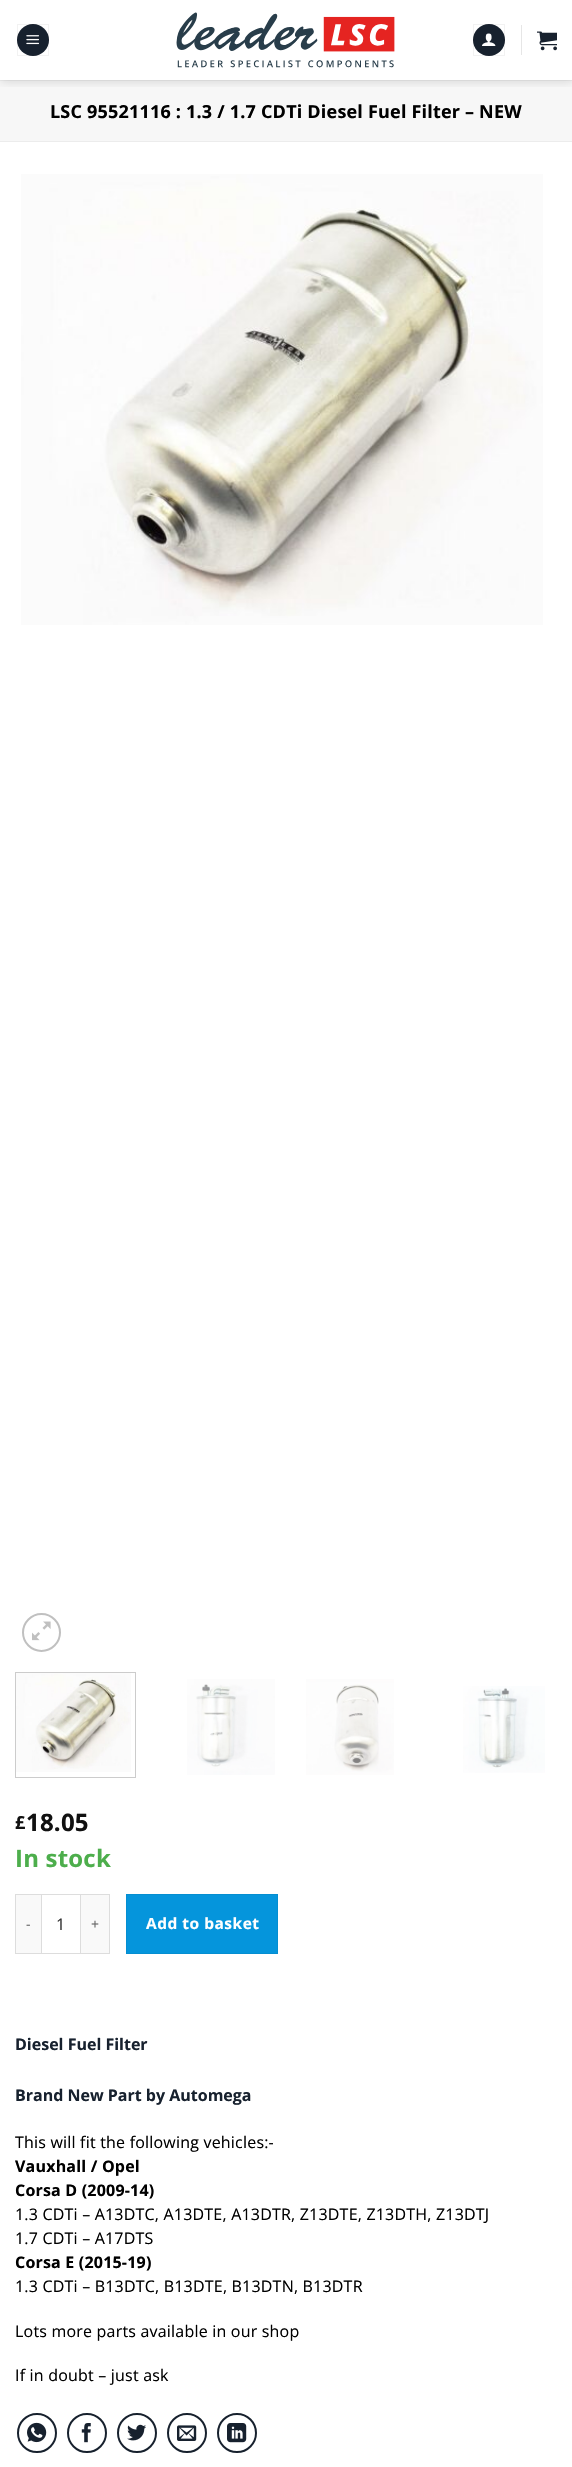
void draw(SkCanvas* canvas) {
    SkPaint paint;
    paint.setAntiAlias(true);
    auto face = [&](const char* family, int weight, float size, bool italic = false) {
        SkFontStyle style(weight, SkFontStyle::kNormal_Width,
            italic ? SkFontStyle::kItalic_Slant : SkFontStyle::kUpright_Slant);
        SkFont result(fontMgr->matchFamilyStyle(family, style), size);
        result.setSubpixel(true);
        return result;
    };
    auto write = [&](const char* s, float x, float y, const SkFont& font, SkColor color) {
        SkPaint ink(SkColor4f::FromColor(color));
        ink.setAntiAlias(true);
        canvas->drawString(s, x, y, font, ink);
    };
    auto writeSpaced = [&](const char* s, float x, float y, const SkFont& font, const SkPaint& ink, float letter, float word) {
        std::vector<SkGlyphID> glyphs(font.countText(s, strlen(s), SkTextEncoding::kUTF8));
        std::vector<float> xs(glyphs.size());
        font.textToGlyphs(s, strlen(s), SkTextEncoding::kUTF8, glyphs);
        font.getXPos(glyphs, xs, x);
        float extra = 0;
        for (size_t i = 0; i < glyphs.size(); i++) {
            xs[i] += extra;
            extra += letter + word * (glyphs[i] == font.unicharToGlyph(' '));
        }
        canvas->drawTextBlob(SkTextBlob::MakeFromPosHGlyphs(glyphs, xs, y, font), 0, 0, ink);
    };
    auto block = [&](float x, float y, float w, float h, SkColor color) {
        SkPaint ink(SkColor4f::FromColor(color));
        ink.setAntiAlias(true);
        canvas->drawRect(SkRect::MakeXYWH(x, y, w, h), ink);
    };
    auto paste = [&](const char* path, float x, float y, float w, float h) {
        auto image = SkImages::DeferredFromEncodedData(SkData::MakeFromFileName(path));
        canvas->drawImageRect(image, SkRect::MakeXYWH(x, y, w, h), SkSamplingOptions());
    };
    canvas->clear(SK_ColorWHITE);
    block(0, 81, 572, 60, SkColorSetRGB(247, 247, 247));
    block(0, 80, 572, 1, SkColorSetRGB(236, 236, 236));
    canvas->save();
    canvas->clipRect(SkRect::MakeXYWH(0, 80, 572, 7));
    paint.setColor(SkColorSetARGB(38, 0, 0, 0));
    paint.setMaskFilter(SkMaskFilter::MakeBlur(kNormal_SkBlurStyle, 5));
    canvas->drawRect(SkRect::MakeXYWH(1, 1, 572, 80), paint);
    paint.setMaskFilter(nullptr);
    canvas->restore();
    paint.setColor(SkColorSetRGB(23, 33, 46));
    canvas->drawCircle(33, 40, 16, paint);
    paint.setStyle(SkPaint::kStroke_Style);
    paint.setStrokeWidth(1);
    paint.setColor(SkColorSetARGB(13, 0, 0, 0));
    canvas->drawRect(SkRect::MakeXYWH(17.5f, 24.5f, 31, 31), paint);
    paste("pic1.png", 26, 35, 13, 10);
    paste("pic2.png", 176, 12, 219, 56);
    paint.setStyle(SkPaint::kFill_Style);
    paint.setColor(SkColorSetRGB(23, 33, 46));
    canvas->drawCircle(489, 40, 16, paint);
    paint.setStyle(SkPaint::kStroke_Style);
    paint.setColor(SkColorSetARGB(13, 0, 0, 0));
    canvas->drawRect(SkRect::MakeXYWH(473.5f, 24.5f, 31, 31), paint);
    paste("pic3.png", 482, 33, 14, 13);
    block(521, 25, 1, 30, SkColorSetRGB(230, 230, 230));
    paste("pic4.png", 537, 31, 20, 20);
    block(0, 141, 572, 1, SkColorSetRGB(236, 236, 236));
    auto kFont1 = face("Open Sans", 700, 18);
    paint.setStyle(SkPaint::kFill_Style);
    paint.setColor(SK_ColorBLACK);
    writeSpaced("LSC 95521116 : 1.3 / 1.7 CDTi Diesel Fuel Filter – NEW", 50, 118, kFont1, paint, 0.2f, 0);
    paste("pic5.png", 21, 174, 522, 451);
    paint.setStyle(SkPaint::kStroke_Style);
    paint.setStrokeWidth(2);
    paint.setColor(SkColorSetRGB(192, 192, 192));
    canvas->drawCircle(41.5f, 1632.5f, 18.5f, paint);
    paste("pic6.png", 32, 1621, 19, 20);
    paint.setStrokeWidth(1);
    paint.setColor(SkColorSetRGB(204, 204, 204));
    canvas->drawRect(SkRect::MakeXYWH(15.5f, 1672.5f, 120, 105), paint);
    paste("pic7.png", 16, 1673, 115, 99);
    paste("pic8.png", 187, 1679, 88, 96);
    paste("pic9.png", 306, 1679, 88, 96);
    paste("pic10.png", 463, 1686, 82, 87);
    paint.setStyle(SkPaint::kFill_Style);
    paint.setColor(SkColorSetRGB(17, 17, 17));
    writeSpaced("£", 15, 1829, kFont1, paint, 0.2f, 0);
    auto kFont2 = face("Open Sans", 700, 24);
    writeSpaced("18.05", 26, 1831, kFont2, paint, 0.2f, 0);
    paint.setColor(SkColorSetRGB(77, 174, 76));
    writeSpaced("In stock", 15, 1867, kFont2, paint, 0.2f, 0);
    block(16, 1895, 25, 58, SkColorSetRGB(249, 249, 249));
    block(15, 1894, 26, 1, SkColorSetRGB(221, 221, 221));
    block(15, 1953, 26, 1, SkColorSetRGB(221, 221, 221));
    block(15, 1894, 1, 60, SkColorSetRGB(221, 221, 221));
    auto kFont3 = face("Open Sans", 400, 14);
    paint.setColor(SkColorSetRGB(102, 102, 102));
    writeSpaced("-", 26, 1929, kFont3, paint, 0.2f, 0);
    paint.setStyle(SkPaint::kStroke_Style);
    paint.setColor(SkColorSetRGB(221, 221, 221));
    canvas->drawRect(SkRect::MakeXYWH(41.5f, 1894.5f, 39, 59), paint);
    auto kFont4 = face("Open Sans", 400, 16);
    write("1", 56, 1930, kFont4, SkColorSetRGB(51, 51, 51));
    block(81, 1895, 28, 58, SkColorSetRGB(249, 249, 249));
    block(81, 1894, 29, 1, SkColorSetRGB(221, 221, 221));
    block(109, 1894, 1, 60, SkColorSetRGB(221, 221, 221));
    block(81, 1953, 29, 1, SkColorSetRGB(221, 221, 221));
    paint.setStyle(SkPaint::kFill_Style);
    paint.setColor(SkColorSetRGB(102, 102, 102));
    writeSpaced("+", 91, 1929, kFont3, paint, 0.2f, 0);
    paint.setColor(SkColorSetRGB(5, 149, 220));
    canvas->drawRect(SkRect::MakeXYWH(126.5f, 1894.5f, 151, 59), paint);
    paint.setStyle(SkPaint::kStroke_Style);
    paint.setColor(SkColorSetRGB(5, 142, 209));
    canvas->drawRect(SkRect::MakeXYWH(126.5f, 1894.5f, 151, 59), paint);
    auto kFont5 = face("Open Sans", 700, 15.5f);
    paint.setStyle(SkPaint::kFill_Style);
    paint.setColor(SK_ColorWHITE);
    writeSpaced("Add to basket", 146, 1929, kFont5, paint, 0.5f, 0);
    auto kFont6 = face("Open Sans", 700, 16);
    write("Diesel Fuel Filter", 15, 2050, kFont6, SkColorSetRGB(23, 33, 46));
    write("Brand New Part by Automega", 15, 2101, kFont6, SkColorSetRGB(23, 33, 46));
    paint.setColor(SK_ColorBLACK);
    writeSpaced("This will fit the following vehicles:-", 15, 2148, kFont4, paint, 0.2f, 0);
    writeSpaced("Vauxhall / Opel", 15, 2172, kFont6, paint, 0.2f, 0);
    writeSpaced("Corsa D (2009-14)", 15, 2196, kFont6, paint, 0.2f, 0);
    writeSpaced("1.3 CDTi – A13DTC, A13DTE, A13DTR, Z13DTE, Z13DTH, Z13DTJ", 15, 2220, kFont4, paint, 0.2f, 0);
    writeSpaced("1.7 CDTi – A17DTS", 15, 2244, kFont4, paint, 0.2f, 0);
    writeSpaced("Corsa E (2015-19)", 15, 2268, kFont6, paint, 0.2f, 0);
    writeSpaced("1.3 CDTi – B13DTC, B13DTE, B13DTN, B13DTR", 15, 2292, kFont4, paint, 0.2f, 0);
    writeSpaced("Lots more parts available in our shop", 15, 2337, kFont4, paint, 0.2f, 0);
    writeSpaced("If in doubt – just ask", 15, 2381, kFont4, paint, 0.2f, 0);
    paint.setStyle(SkPaint::kStroke_Style);
    paint.setStrokeWidth(2);
    paint.setColor(SkColorSetRGB(23, 33, 46));
    canvas->drawCircle(37, 2433, 19, paint);
    paste("pic11.png", 27, 2422, 20, 21);
    canvas->drawCircle(87, 2433, 19, paint);
    paste("pic12.png", 81, 2423, 10, 20);
    canvas->drawCircle(137, 2433, 19, paint);
    paste("pic13.png", 127, 2424, 19, 17);
    canvas->drawCircle(187, 2433, 19, paint);
    paste("pic14.png", 177, 2425, 20, 16);
    canvas->drawCircle(237, 2433, 19, paint);
    paste("pic15.png", 227, 2423, 20, 20);
}
